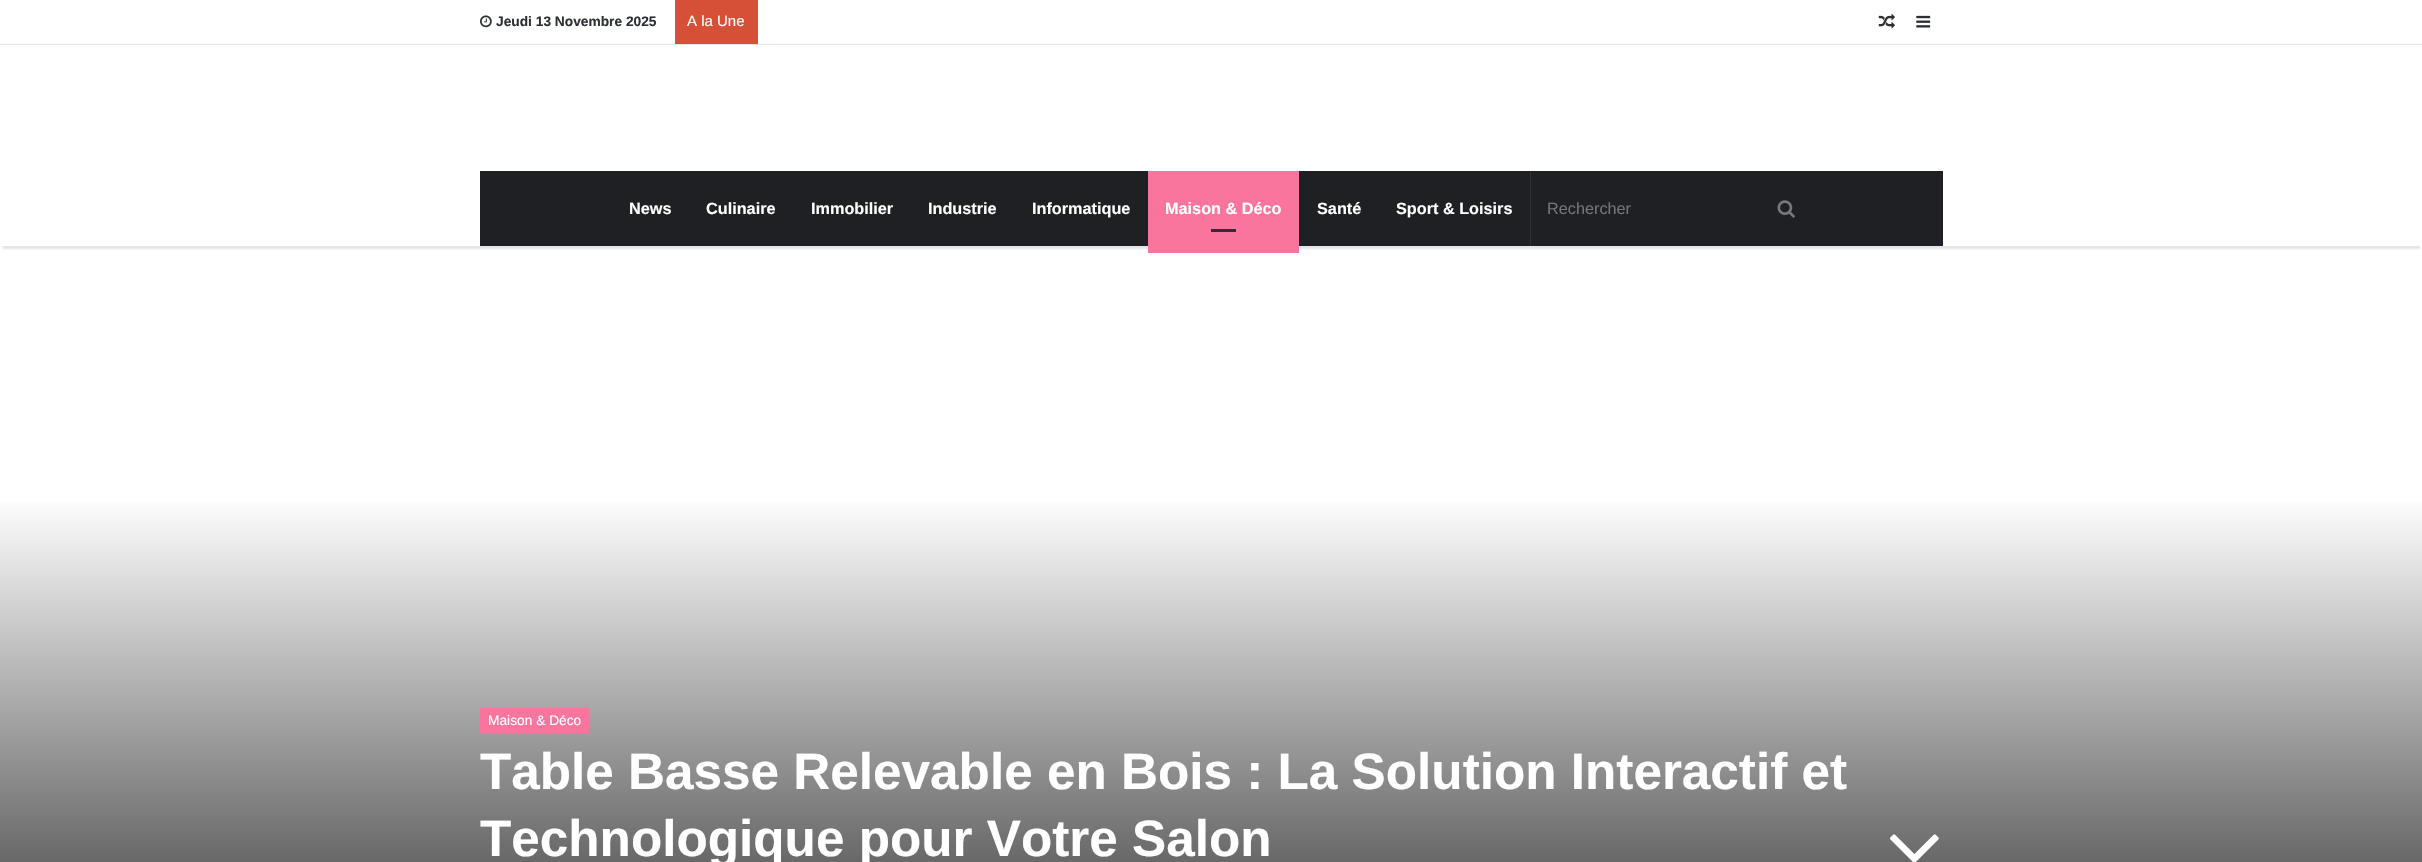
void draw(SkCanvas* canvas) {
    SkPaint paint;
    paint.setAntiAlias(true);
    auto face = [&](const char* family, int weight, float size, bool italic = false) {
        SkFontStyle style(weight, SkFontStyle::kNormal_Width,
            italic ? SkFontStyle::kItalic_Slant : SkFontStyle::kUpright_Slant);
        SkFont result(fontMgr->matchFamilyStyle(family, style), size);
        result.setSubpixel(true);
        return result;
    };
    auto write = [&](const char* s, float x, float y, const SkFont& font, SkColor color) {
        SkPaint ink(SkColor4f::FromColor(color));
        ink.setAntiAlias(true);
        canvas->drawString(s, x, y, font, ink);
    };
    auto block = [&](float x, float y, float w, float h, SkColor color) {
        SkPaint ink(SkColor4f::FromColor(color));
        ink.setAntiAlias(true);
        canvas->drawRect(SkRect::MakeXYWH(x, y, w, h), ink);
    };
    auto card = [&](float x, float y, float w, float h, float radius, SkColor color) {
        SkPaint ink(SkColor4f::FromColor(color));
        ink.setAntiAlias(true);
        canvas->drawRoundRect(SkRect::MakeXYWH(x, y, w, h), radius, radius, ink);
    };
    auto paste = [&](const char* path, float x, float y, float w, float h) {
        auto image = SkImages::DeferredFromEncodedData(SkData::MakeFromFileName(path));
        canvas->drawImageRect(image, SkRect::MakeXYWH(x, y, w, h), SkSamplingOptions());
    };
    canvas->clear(SK_ColorWHITE);
    canvas->save();
    canvas->clipRect(SkRect::MakeXYWH(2, 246, 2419, 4));
    paint.setColor(SkColorSetARGB(26, 0, 0, 0));
    paint.setMaskFilter(SkMaskFilter::MakeBlur(kNormal_SkBlurStyle, 1));
    canvas->drawRect(SkRect::MakeXYWH(3, 8, 2417, 241), paint);
    paint.setMaskFilter(nullptr);
    canvas->restore();
    block(0, 44, 2422, 1, SkColorSetRGB(230, 230, 230));
    paste("pic1.png", 480, 15, 12, 13);
    auto kFont1 = face("Liberation Sans", 700, 13.75f);
    write("Jeudi 13 Novembre 2025", 496, 26, kFont1, SkColorSetRGB(44, 47, 52));
    block(675, 0, 83, 44, SkColorSetRGB(213, 80, 55));
    auto kFont2 = face("Liberation Sans", 400, 15);
    write("A la Une", 687, 26, kFont2, SK_ColorWHITE);
    paste("pic2.png", 1878, 13, 17, 16);
    paste("pic3.png", 1916, 15, 15, 13);
    block(480, 171, 1463, 75, SkColorSetRGB(31, 32, 36));
    auto kFont3 = face("Liberation Sans", 700, 16.25f);
    write("News", 629, 214, kFont3, SK_ColorWHITE);
    write("Culinaire", 706, 214, kFont3, SK_ColorWHITE);
    write("Immobilier", 811, 214, kFont3, SK_ColorWHITE);
    write("Industrie", 928, 214, kFont3, SK_ColorWHITE);
    write("Informatique", 1032, 214, kFont3, SK_ColorWHITE);
    block(1148, 171, 151, 82, SkColorSetRGB(249, 117, 157));
    write("Maison & Déco", 1165, 214, kFont3, SK_ColorWHITE);
    block(1211, 229, 25, 3, SkColorSetRGB(44, 47, 52));
    write("Santé", 1317, 214, kFont3, SK_ColorWHITE);
    write("Sport & Loisirs", 1396, 214, kFont3, SK_ColorWHITE);
    block(1530, 171, 1, 75, SkColorSetRGB(47, 48, 51));
    auto kFont4 = face("Liberation Sans", 400, 16.25f);
    write("Rechercher", 1547, 214, kFont4, SkColorSetRGB(117, 117, 117));
    paste("pic4.png", 1777, 200, 18, 18);
    {
        const SkColor colors[] = {SK_ColorWHITE, SkColorSetRGB(64, 64, 64)};
        const float stops[] = {0, 1};
        const SkPoint ends[] = {{1211, 496}, {1211, 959}};
        paint.setShader(SkGradientShader::MakeLinear(ends, colors, stops, 2, SkTileMode::kClamp));
        paint.setAlpha(255);
    }
    canvas->drawRect(SkRect::MakeXYWH(0, 502, 2422, 360), paint);
    card(480, 708, 109, 25, 2.5f, SkColorSetRGB(249, 117, 157));
    auto kFont5 = face("Liberation Sans", 400, 13.75f);
    write("Maison & Déco", 488, 725, kFont5, SK_ColorWHITE);
    auto kFont6 = face("Liberation Sans", 700, 51.25f);
    write("Table Basse Relevable en Bois : La Solution Interactif et", 480, 789, kFont6, SK_ColorWHITE);
    write("Technologique pour Votre Salon", 480, 856, kFont6, SK_ColorWHITE);
    paste("pic5.png", 1890, 834, 49, 28);
}
